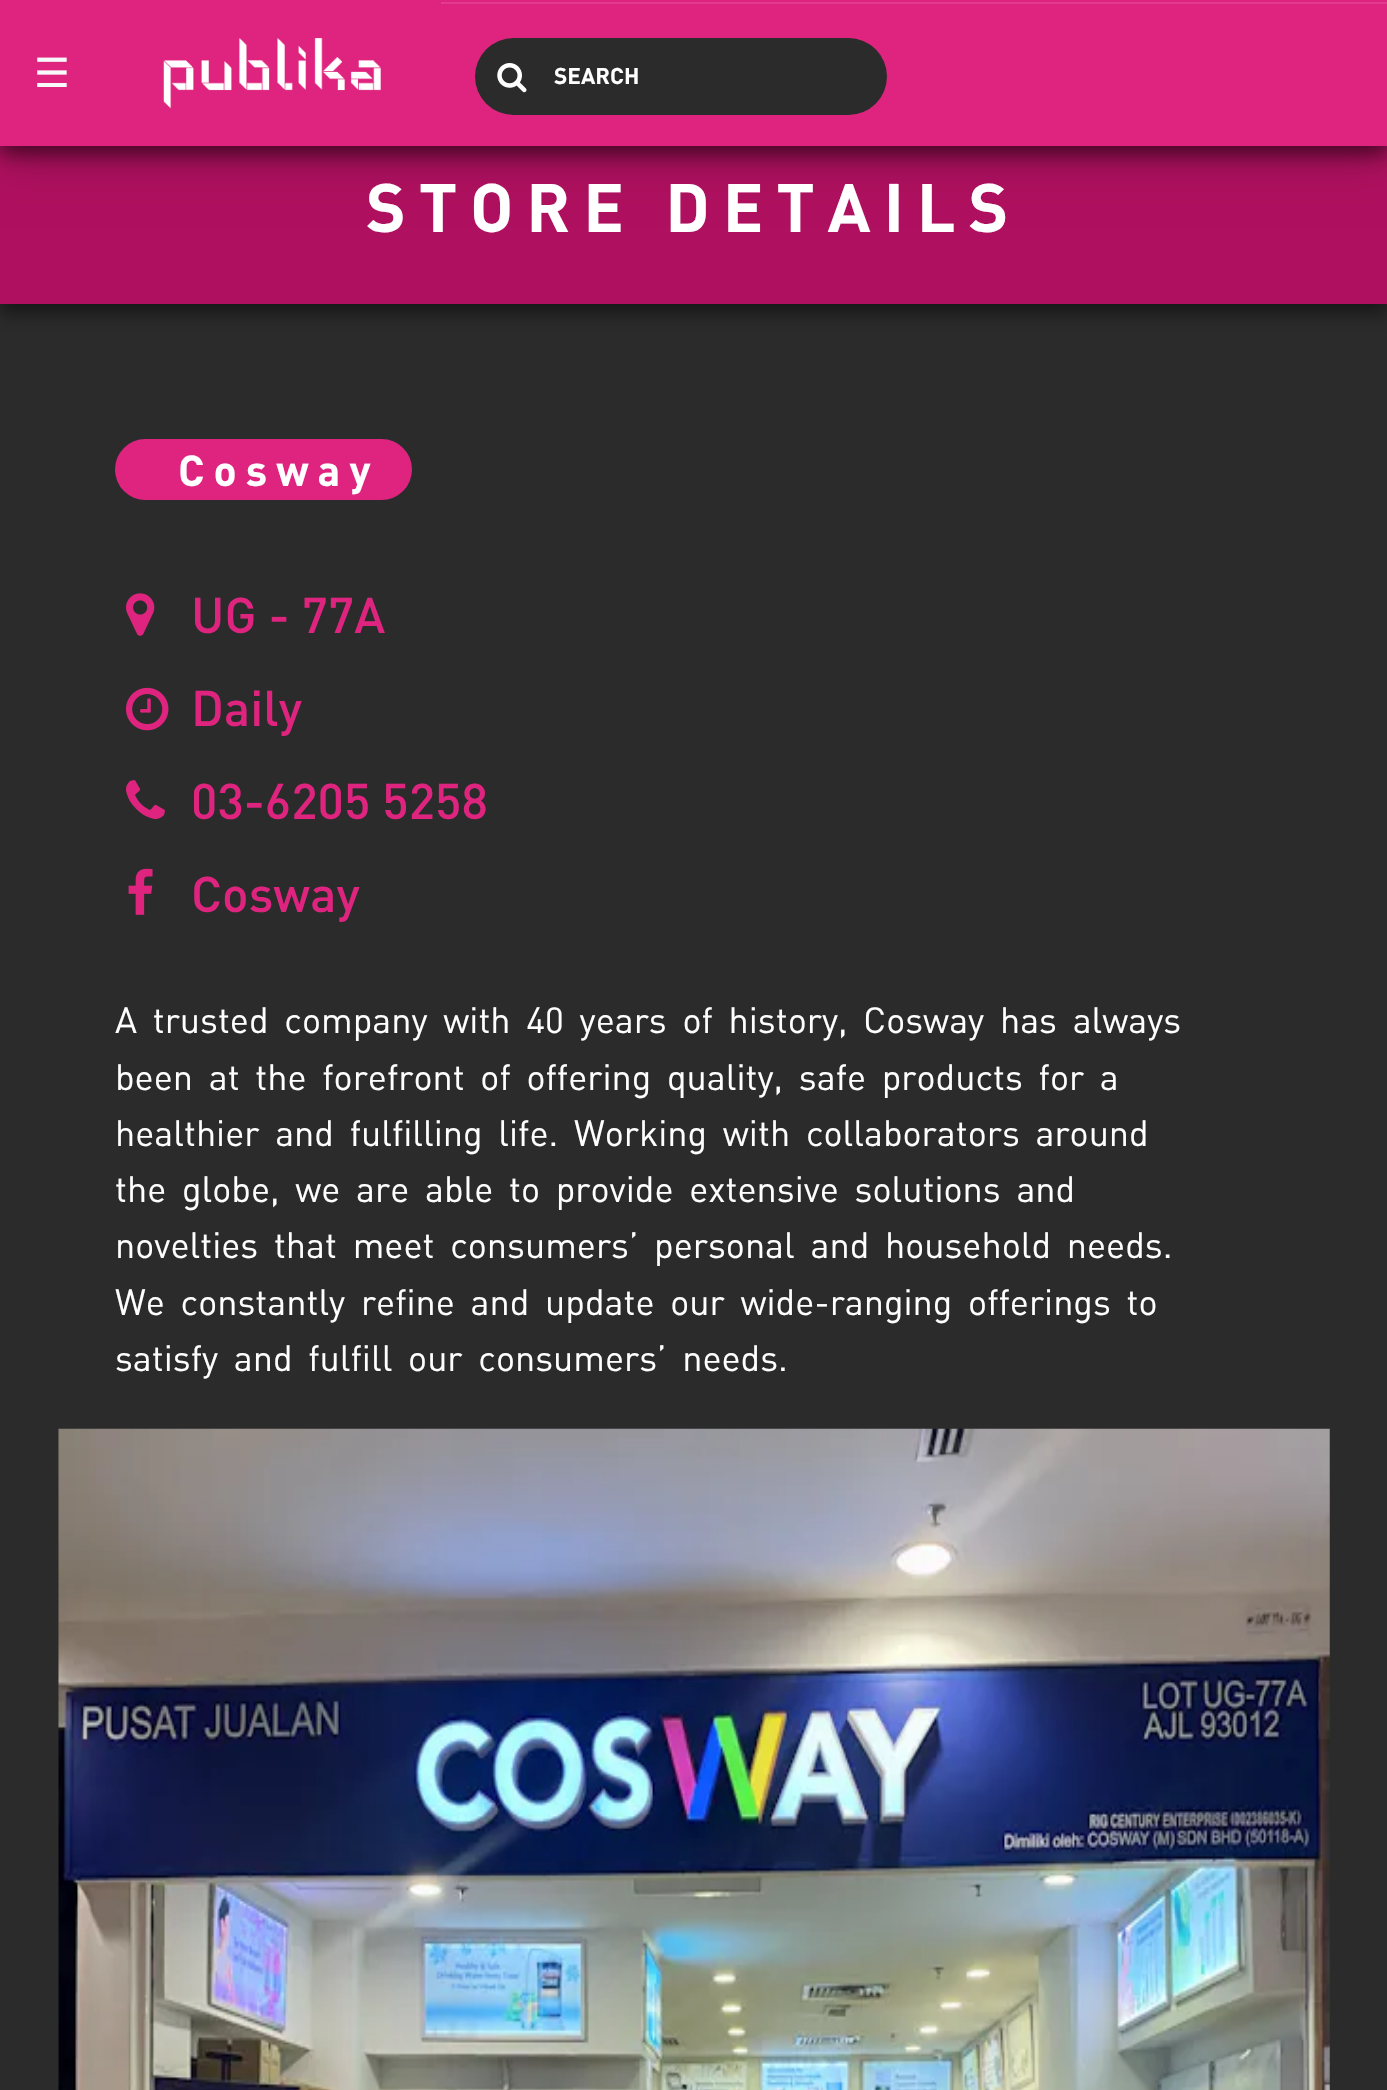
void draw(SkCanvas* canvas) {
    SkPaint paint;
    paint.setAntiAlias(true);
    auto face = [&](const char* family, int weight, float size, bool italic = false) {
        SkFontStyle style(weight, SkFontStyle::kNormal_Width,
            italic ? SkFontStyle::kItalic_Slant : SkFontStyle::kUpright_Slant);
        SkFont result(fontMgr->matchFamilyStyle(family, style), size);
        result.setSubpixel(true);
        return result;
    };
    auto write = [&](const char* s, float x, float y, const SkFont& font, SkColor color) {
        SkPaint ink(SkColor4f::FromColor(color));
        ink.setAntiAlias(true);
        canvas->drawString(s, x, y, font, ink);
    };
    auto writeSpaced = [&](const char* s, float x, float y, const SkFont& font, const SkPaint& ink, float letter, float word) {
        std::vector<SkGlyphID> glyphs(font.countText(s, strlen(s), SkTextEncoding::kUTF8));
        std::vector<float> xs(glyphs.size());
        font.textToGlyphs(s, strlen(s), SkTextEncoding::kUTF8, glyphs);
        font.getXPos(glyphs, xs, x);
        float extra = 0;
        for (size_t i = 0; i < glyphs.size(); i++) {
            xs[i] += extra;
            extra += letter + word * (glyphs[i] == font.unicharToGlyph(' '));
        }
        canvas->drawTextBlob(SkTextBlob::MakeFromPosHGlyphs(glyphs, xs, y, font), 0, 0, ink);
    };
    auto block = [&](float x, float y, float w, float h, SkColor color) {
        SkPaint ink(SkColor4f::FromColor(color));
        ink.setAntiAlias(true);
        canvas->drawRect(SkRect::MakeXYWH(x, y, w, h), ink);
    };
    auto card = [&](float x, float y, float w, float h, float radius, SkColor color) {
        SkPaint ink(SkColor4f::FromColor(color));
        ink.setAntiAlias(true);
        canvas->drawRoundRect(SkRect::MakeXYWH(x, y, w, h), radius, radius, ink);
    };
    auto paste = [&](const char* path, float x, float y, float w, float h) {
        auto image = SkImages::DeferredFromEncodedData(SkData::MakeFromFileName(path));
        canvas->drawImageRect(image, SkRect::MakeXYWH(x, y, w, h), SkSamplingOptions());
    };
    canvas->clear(SkColorSetRGB(43, 43, 43));
    paint.setColor(SkColorSetARGB(128, 0, 0, 0));
    paint.setMaskFilter(SkMaskFilter::MakeBlur(kNormal_SkBlurStyle, 9));
    canvas->drawRect(SkRect::MakeXYWH(0, 155, 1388, 158), paint);
    paint.setMaskFilter(nullptr);
    block(0, 146, 1387, 158, SkColorSetRGB(175, 16, 95));
    paint.setColor(SkColorSetARGB(48, 0, 0, 0));
    paint.setMaskFilter(SkMaskFilter::MakeBlur(kNormal_SkBlurStyle, 22.5f));
    canvas->drawRect(SkRect::MakeXYWH(0, 14, 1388, 146), paint);
    paint.setMaskFilter(nullptr);
    paint.setColor(SkColorSetARGB(128, 0, 0, 0));
    paint.setMaskFilter(SkMaskFilter::MakeBlur(kNormal_SkBlurStyle, 9));
    canvas->drawRect(SkRect::MakeXYWH(0, 9, 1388, 146), paint);
    paint.setMaskFilter(nullptr);
    block(0, 0, 1387, 146, SkColorSetRGB(223, 36, 127));
    auto kFont1 = face("DejaVu Sans", 400, 40);
    write("☰", 34, 87, kFont1, SkColorSetRGB(248, 249, 250));
    paste("pic1.png", 163, 38, 218, 71);
    block(441, 2, 946, 2, SkColorSetRGB(226, 58, 140));
    card(475, 38, 412, 77, 38.5f, SkColorSetRGB(43, 43, 43));
    paste("pic2.png", 497, 63, 30, 30);
    auto kFont2 = face("DIN", 700, 22.5f);
    write("SEARCH", 554, 84, kFont2, SK_ColorWHITE);
    auto kFont3 = face("DIN", 700, 67.5f);
    paint.setColor(SK_ColorWHITE);
    writeSpaced("STORE DETAILS", 366, 232, kFont3, paint, 12.8f, 0);
    card(115, 439, 297, 61, 30.5f, SkColorSetRGB(223, 36, 127));
    auto kFont4 = face("DIN", 700, 42.75f);
    writeSpaced("Cosway", 178, 486, kFont4, paint, 9, 0);
    paste("pic3.png", 126, 593, 29, 43);
    auto kFont5 = face("DIN", 500, 49.5f);
    write("UG - 77A", 191, 633, kFont5, SkColorSetRGB(223, 36, 127));
    paste("pic4.png", 126, 687, 43, 44);
    write("Daily", 191, 726, kFont5, SkColorSetRGB(223, 36, 127));
    paste("pic5.png", 126, 780, 39, 39);
    write("03-6205 5258", 191, 819, kFont5, SkColorSetRGB(223, 36, 127));
    paste("pic6.png", 128, 868, 25, 47);
    write("Cosway", 191, 912, kFont5, SkColorSetRGB(223, 36, 127));
    auto kFont6 = face("DIN", 400, 36);
    writeSpaced("A trusted company with 40 years of history, Cosway has always", 115, 1033, kFont6, paint, 0, 6.75f);
    writeSpaced("been at the forefront of offering quality, safe products for a", 115, 1090, kFont6, paint, 0, 6.75f);
    writeSpaced("healthier and fulfilling life. Working with collaborators around", 115, 1146, kFont6, paint, 0, 6.75f);
    writeSpaced("the globe, we are able to provide extensive solutions and", 115, 1202, kFont6, paint, 0, 6.75f);
    writeSpaced("novelties that meet consumers’ personal and household needs.", 115, 1258, kFont6, paint, 0, 6.75f);
    writeSpaced("We constantly refine and update our wide-ranging offerings to", 115, 1315, kFont6, paint, 0, 6.75f);
    writeSpaced("satisfy and fulfill our consumers’ needs.", 115, 1371, kFont6, paint, 0, 6.75f);
    paste("pic7.png", 58, 1428, 1272, 662);
}
